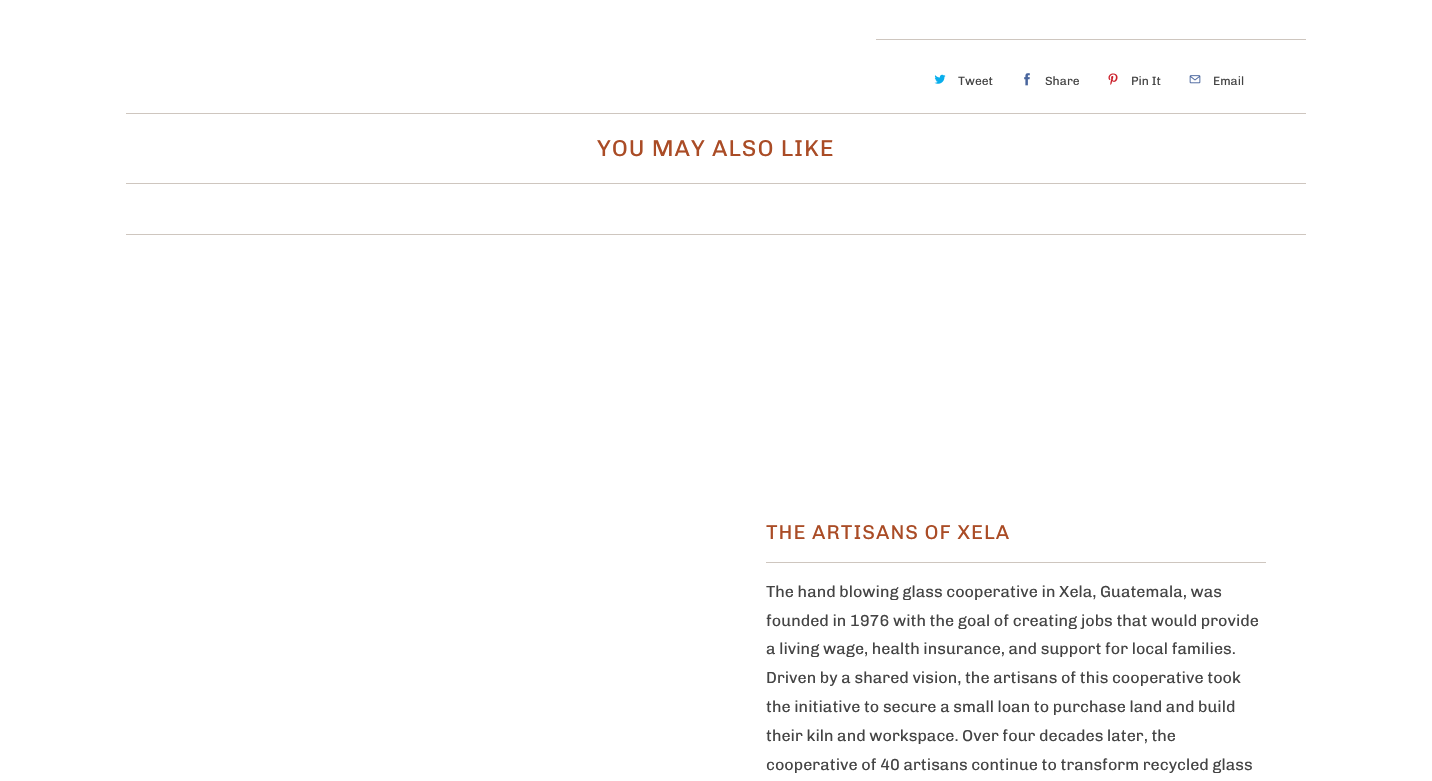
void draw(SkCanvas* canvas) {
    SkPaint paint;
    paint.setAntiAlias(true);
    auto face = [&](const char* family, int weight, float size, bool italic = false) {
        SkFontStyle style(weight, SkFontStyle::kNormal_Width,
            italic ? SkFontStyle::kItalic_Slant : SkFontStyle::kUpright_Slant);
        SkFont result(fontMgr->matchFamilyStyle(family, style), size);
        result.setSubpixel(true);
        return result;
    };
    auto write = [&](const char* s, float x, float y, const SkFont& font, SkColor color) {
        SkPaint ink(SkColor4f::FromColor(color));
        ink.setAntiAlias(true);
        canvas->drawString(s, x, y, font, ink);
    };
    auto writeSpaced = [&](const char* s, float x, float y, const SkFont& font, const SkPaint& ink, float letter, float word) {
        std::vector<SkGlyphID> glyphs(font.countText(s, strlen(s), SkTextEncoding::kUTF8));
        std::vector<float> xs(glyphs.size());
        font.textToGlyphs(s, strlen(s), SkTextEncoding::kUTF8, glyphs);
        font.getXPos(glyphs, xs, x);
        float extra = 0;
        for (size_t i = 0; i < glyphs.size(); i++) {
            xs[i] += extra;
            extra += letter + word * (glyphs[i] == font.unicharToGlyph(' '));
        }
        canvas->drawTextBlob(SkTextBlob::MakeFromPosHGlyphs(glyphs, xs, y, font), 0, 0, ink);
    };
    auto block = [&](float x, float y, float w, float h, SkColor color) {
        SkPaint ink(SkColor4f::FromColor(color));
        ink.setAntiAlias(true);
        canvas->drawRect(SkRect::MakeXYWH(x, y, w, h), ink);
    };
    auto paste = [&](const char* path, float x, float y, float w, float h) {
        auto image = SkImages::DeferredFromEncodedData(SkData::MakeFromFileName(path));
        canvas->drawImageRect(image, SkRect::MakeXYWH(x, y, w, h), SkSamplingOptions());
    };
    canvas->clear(SK_ColorWHITE);
    block(876, 39, 430, 1, SkColorSetRGB(206, 198, 191));
    paste("pic1.png", 934, 74, 12, 10);
    auto kFont1 = face("Chivo", 400, 12);
    write("Tweet", 958, 85, kFont1, SkColorSetRGB(68, 68, 68));
    paste("pic2.png", 1024, 73, 6, 13);
    write("Share", 1045, 85, kFont1, SkColorSetRGB(68, 68, 68));
    paste("pic3.png", 1108, 73, 10, 12);
    write("Pin It", 1131, 85, kFont1, SkColorSetRGB(68, 68, 68));
    paste("pic4.png", 1189, 75, 12, 9);
    write("Email", 1213, 85, kFont1, SkColorSetRGB(68, 68, 68));
    block(126, 113, 1180, 1, SkColorSetRGB(206, 198, 191));
    block(126, 183, 1180, 1, SkColorSetRGB(206, 198, 191));
    auto kFont2 = face("Chivo", 400, 23);
    paint.setColor(SkColorSetRGB(170, 76, 38));
    writeSpaced("YOU MAY ALSO LIKE", 597, 156, kFont2, paint, 1, 0);
    block(126, 234, 1180, 1, SkColorSetRGB(206, 198, 191));
    block(766, 562, 500, 1, SkColorSetRGB(206, 198, 191));
    auto kFont3 = face("Chivo", 400, 20);
    writeSpaced("THE ARTISANS OF XELA", 766, 539, kFont3, paint, 1, 0);
    auto kFont4 = face("Chivo", 400, 16);
    write("The hand blowing glass cooperative in Xela, Guatemala, was", 766, 597, kFont4, SkColorSetRGB(68, 68, 68));
    write("founded in 1976 with the goal of creating jobs that would provide", 766, 626, kFont4, SkColorSetRGB(68, 68, 68));
    write("a living wage, health insurance, and support for local families.", 766, 654, kFont4, SkColorSetRGB(68, 68, 68));
    write("Driven by a shared vision, the artisans of this cooperative took", 766, 683, kFont4, SkColorSetRGB(68, 68, 68));
    write("the initiative to secure a small loan to purchase land and build", 766, 712, kFont4, SkColorSetRGB(68, 68, 68));
    write("their kiln and workspace. Over four decades later, the", 766, 741, kFont4, SkColorSetRGB(68, 68, 68));
    write("cooperative of 40 artisans continue to transform recycled glass", 766, 770, kFont4, SkColorSetRGB(68, 68, 68));
}
